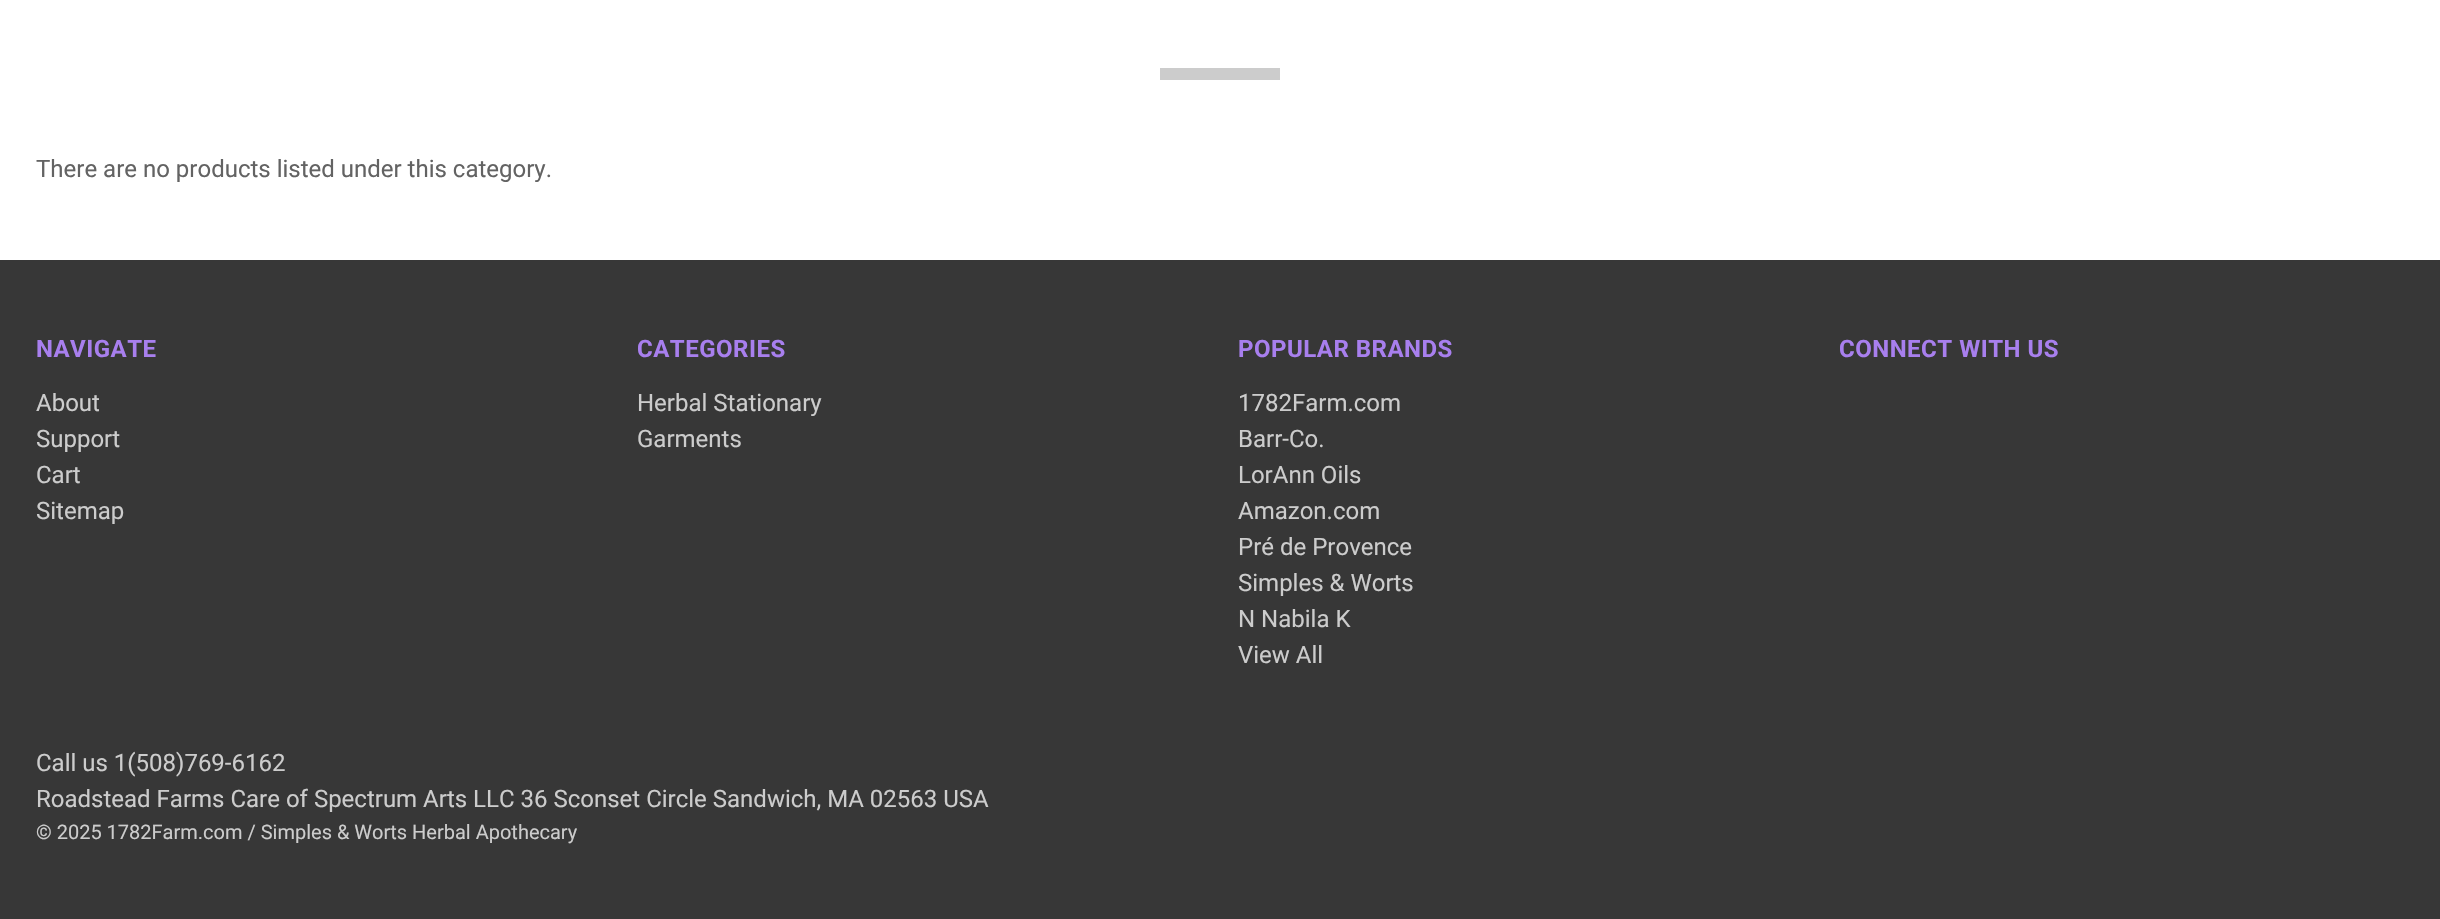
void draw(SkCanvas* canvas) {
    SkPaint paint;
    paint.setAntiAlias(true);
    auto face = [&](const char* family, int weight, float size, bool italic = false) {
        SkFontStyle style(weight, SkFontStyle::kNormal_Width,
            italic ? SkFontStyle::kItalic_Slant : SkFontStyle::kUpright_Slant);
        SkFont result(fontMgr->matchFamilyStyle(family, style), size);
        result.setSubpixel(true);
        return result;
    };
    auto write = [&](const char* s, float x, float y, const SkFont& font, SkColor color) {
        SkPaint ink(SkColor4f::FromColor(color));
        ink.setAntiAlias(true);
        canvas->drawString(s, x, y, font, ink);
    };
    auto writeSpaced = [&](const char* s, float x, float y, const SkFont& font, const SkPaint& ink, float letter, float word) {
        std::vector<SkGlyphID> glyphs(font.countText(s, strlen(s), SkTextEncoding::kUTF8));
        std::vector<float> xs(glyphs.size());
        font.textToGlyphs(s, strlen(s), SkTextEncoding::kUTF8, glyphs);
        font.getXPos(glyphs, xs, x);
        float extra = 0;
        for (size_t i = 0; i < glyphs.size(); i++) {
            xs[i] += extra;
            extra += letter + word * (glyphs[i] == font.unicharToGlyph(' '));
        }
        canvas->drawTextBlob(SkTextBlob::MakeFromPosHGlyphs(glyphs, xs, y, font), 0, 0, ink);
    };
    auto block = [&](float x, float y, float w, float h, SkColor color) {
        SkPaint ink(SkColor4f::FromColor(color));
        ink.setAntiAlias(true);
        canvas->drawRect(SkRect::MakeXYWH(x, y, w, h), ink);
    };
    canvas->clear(SK_ColorWHITE);
    block(1160, 68, 120, 12, SkColorSetRGB(204, 204, 204));
    auto kFont1 = face("Roboto", 400, 24);
    write("There are no products listed under this category.", 36, 177, kFont1, SkColorSetRGB(99, 99, 99));
    block(0, 260, 2440, 659, SkColorSetRGB(55, 55, 55));
    auto kFont2 = face("Roboto", 700, 24);
    paint.setColor(SkColorSetRGB(168, 127, 238));
    writeSpaced("NAVIGATE", 36, 357, kFont2, paint, 0.5f, 0);
    write("About", 36, 411, kFont1, SkColorSetRGB(204, 204, 204));
    write("Support", 36, 447, kFont1, SkColorSetRGB(204, 204, 204));
    write("Cart", 36, 483, kFont1, SkColorSetRGB(204, 204, 204));
    write("Sitemap", 36, 519, kFont1, SkColorSetRGB(204, 204, 204));
    writeSpaced("CATEGORIES", 637, 357, kFont2, paint, 0.5f, 0);
    write("Herbal Stationary", 637, 411, kFont1, SkColorSetRGB(204, 204, 204));
    write("Garments", 637, 447, kFont1, SkColorSetRGB(204, 204, 204));
    writeSpaced("POPULAR BRANDS", 1238, 357, kFont2, paint, 0.5f, 0);
    write("1782Farm.com", 1238, 411, kFont1, SkColorSetRGB(204, 204, 204));
    write("Barr-Co.", 1238, 447, kFont1, SkColorSetRGB(204, 204, 204));
    write("LorAnn Oils", 1238, 483, kFont1, SkColorSetRGB(204, 204, 204));
    write("Amazon.com", 1238, 519, kFont1, SkColorSetRGB(204, 204, 204));
    write("Pré de Provence", 1238, 555, kFont1, SkColorSetRGB(204, 204, 204));
    write("Simples & Worts", 1238, 591, kFont1, SkColorSetRGB(204, 204, 204));
    write("N Nabila K", 1238, 627, kFont1, SkColorSetRGB(204, 204, 204));
    write("View All", 1238, 663, kFont1, SkColorSetRGB(204, 204, 204));
    writeSpaced("CONNECT WITH US", 1839, 357, kFont2, paint, 0.5f, 0);
    write("Call us 1(508)769-6162", 36, 771, kFont1, SkColorSetRGB(204, 204, 204));
    write("Roadstead Farms Care of Spectrum Arts LLC 36 Sconset Circle Sandwich, MA 02563 USA", 36, 807, kFont1, SkColorSetRGB(204, 204, 204));
    auto kFont3 = face("Roboto", 400, 20);
    write("© 2025 1782Farm.com / Simples & Worts Herbal Apothecary", 36, 839, kFont3, SkColorSetRGB(204, 204, 204));
}
